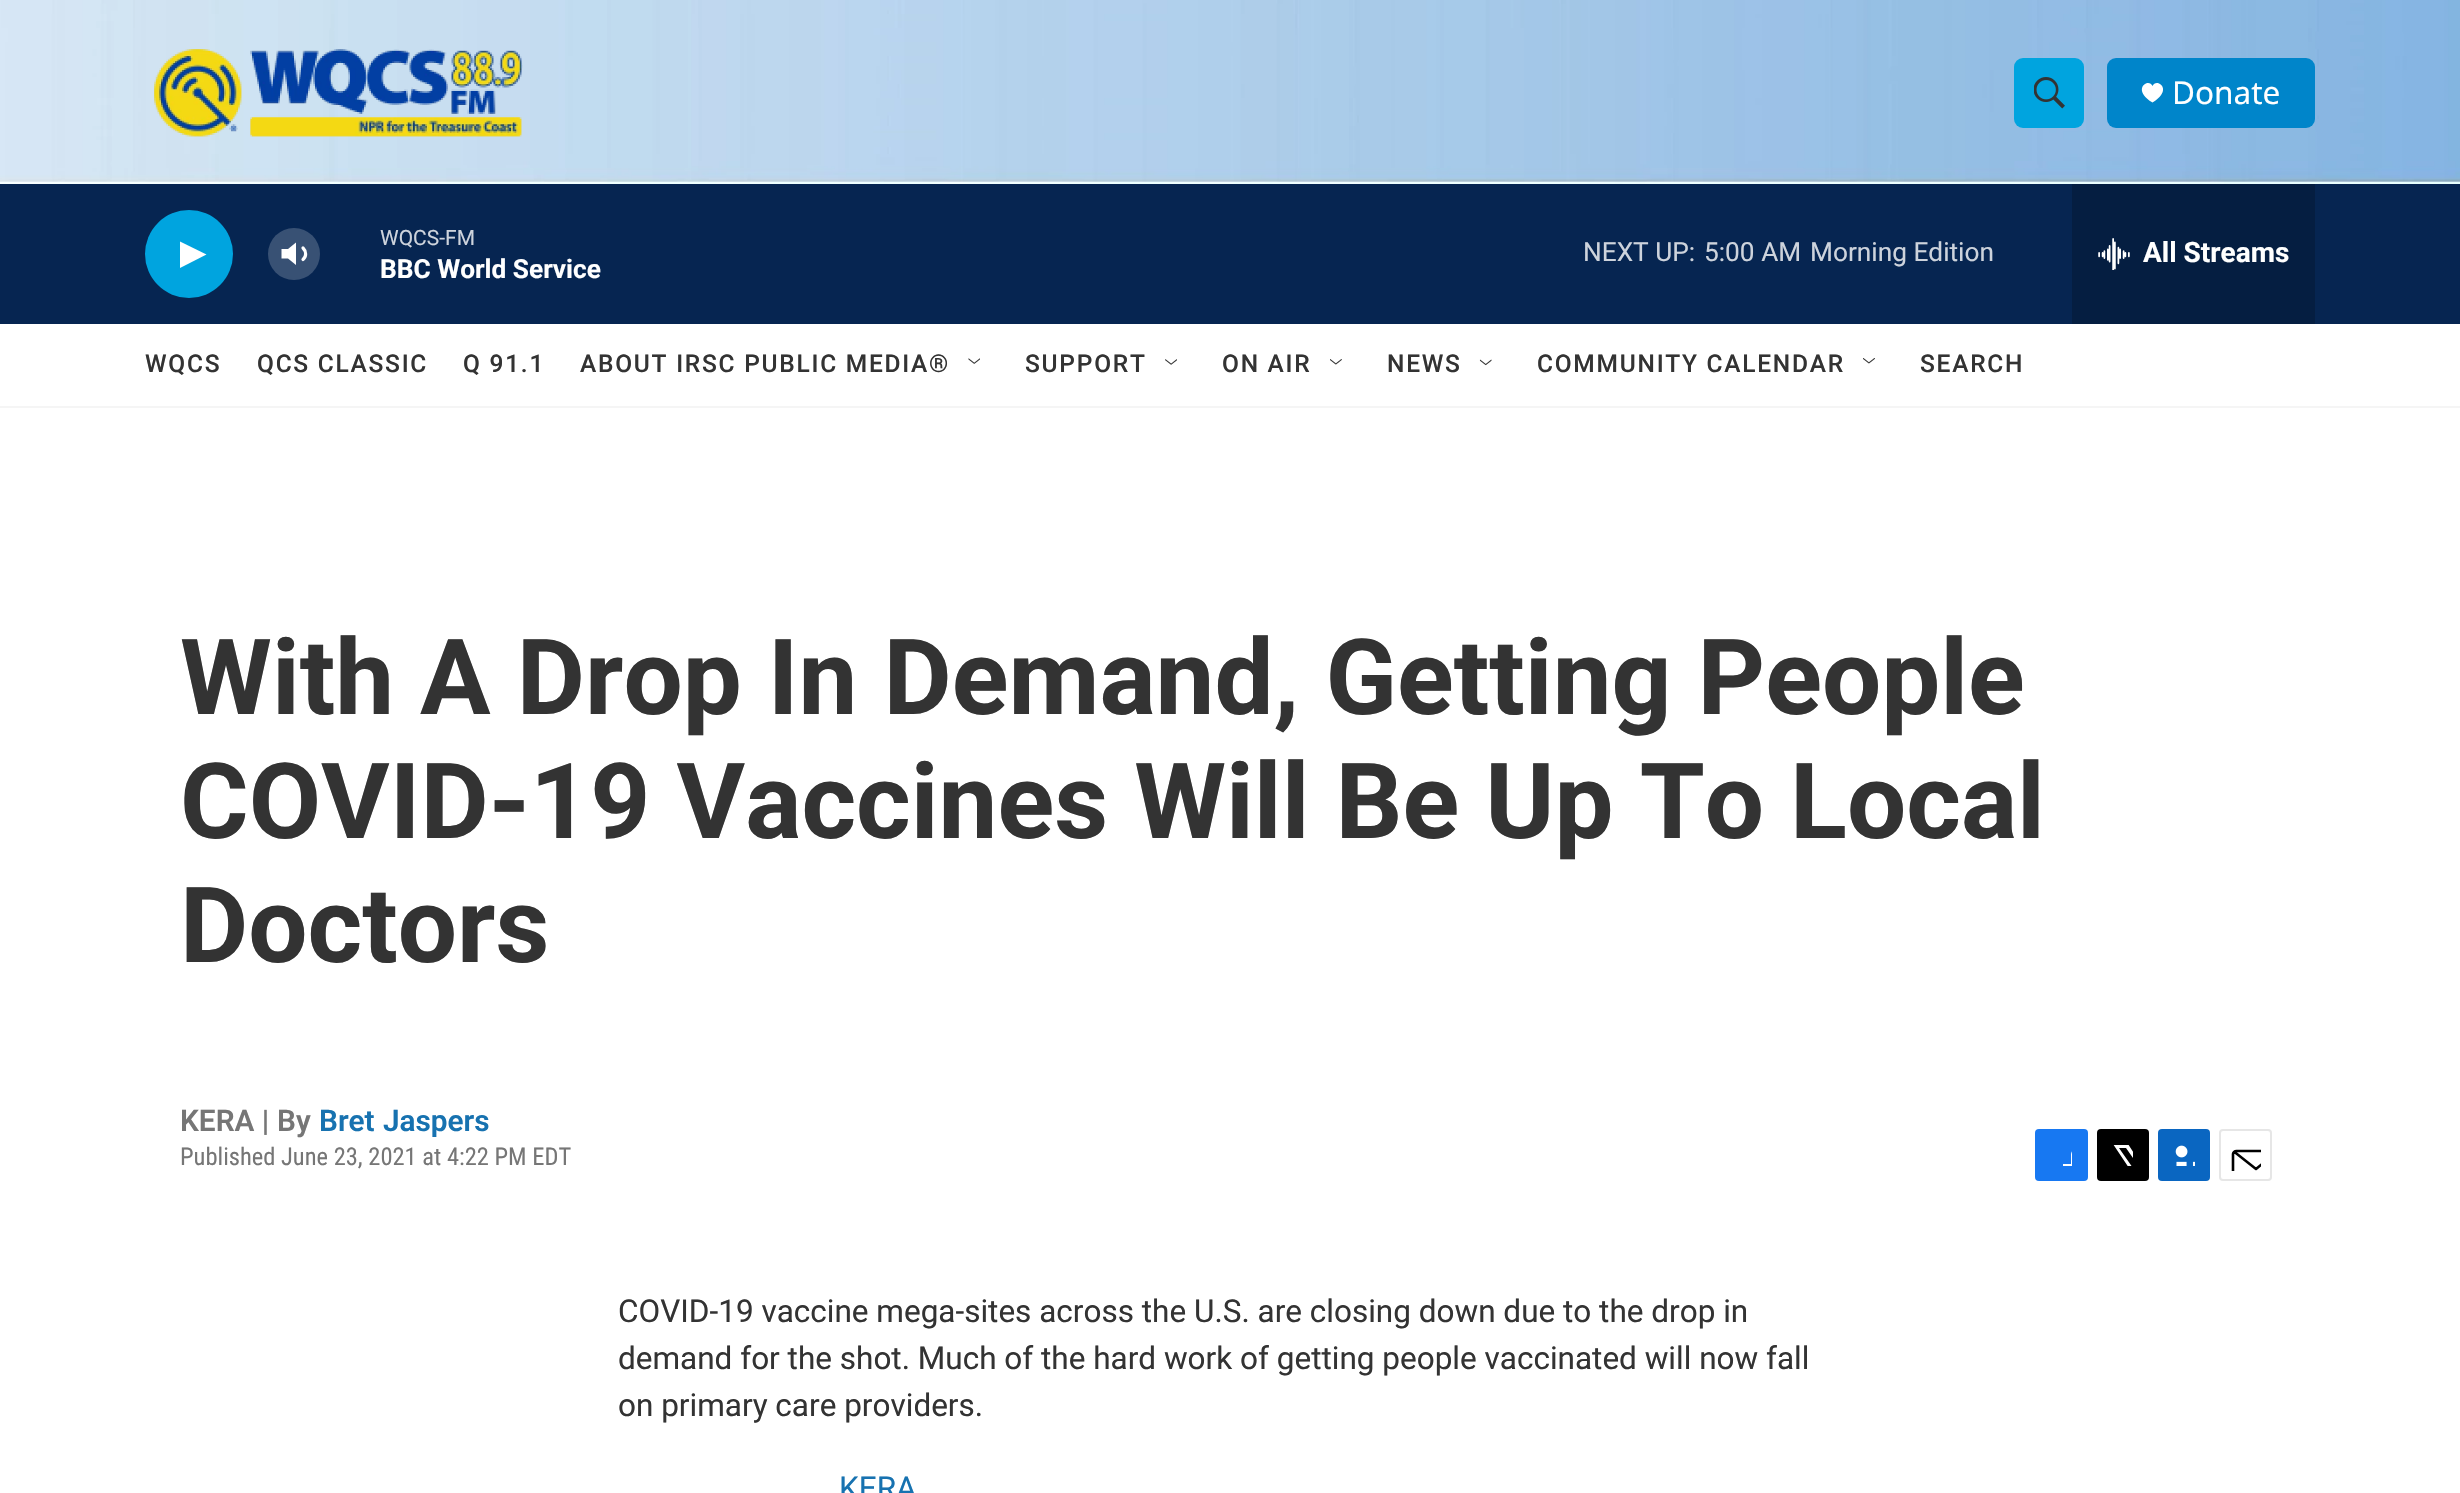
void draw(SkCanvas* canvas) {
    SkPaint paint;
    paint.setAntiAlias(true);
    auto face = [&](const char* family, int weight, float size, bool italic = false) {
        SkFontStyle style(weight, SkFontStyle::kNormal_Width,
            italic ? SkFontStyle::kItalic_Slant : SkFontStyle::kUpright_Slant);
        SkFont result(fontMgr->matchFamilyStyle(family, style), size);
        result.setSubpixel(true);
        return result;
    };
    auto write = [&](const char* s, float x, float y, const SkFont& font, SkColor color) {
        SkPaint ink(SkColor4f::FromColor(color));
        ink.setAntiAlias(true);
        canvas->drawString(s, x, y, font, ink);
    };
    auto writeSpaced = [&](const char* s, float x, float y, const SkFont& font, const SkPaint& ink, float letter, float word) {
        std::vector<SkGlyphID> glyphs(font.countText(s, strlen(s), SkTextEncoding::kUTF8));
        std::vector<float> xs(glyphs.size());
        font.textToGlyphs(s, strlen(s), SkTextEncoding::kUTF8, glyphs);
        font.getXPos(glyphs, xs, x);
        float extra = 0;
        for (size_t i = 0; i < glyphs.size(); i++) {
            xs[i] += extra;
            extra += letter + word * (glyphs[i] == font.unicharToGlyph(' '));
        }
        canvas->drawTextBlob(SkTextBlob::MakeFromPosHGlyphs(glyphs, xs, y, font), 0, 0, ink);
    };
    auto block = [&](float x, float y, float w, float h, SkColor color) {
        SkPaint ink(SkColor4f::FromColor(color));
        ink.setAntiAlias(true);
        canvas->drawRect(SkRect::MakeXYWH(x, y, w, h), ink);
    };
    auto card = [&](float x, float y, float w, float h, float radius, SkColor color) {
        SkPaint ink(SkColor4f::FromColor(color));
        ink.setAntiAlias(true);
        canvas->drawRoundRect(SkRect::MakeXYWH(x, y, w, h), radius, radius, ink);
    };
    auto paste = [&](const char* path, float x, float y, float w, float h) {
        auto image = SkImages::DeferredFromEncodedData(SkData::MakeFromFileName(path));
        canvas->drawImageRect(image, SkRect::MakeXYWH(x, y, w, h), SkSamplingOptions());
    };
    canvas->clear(SK_ColorWHITE);
    block(0, 406, 2460, 2, SkColorSetRGB(245, 245, 245));
    paste("pic1.png", 0, 0, 2460, 184);
    paste("pic2.png", 154, 49, 369, 88);
    card(2014, 58, 70, 70, 9, SkColorSetRGB(0, 164, 223));
    paste("pic3.png", 2034, 77, 31, 32);
    card(2107, 58, 208, 70, 9, SkColorSetRGB(0, 133, 202));
    paint.setColor(SK_ColorWHITE);
    canvas->drawPath(SkPathBuilder().moveTo(2152.5f, 86).cubicTo(2149, 77, 2130.5f, 89, 2152.5f, 102.5f).cubicTo(2174.5f, 89, 2156, 77, 2152.5f, 86).close().detach(), paint);
    auto kFont1 = face("Noto Sans", 400, 31.5f);
    write("Donate", 2172, 104, kFont1, SK_ColorWHITE);
    block(0, 184, 2460, 140, SkColorSetRGB(6, 37, 81));
    paint.setColor(SkColorSetRGB(0, 164, 223));
    canvas->drawCircle(189, 254, 44, paint);
    paint.setColor(SK_ColorWHITE);
    canvas->drawPath(SkPathBuilder().moveTo(180, 241.5f).lineTo(206.5f, 254.5f).lineTo(180, 268).close().detach(), paint);
    canvas->drawPath(SkPathBuilder().moveTo(296, 242.5f).lineTo(288, 249).lineTo(281.5f, 249).lineTo(281.5f, 258.5f).lineTo(288, 258.5f).lineTo(296, 265).close().detach(), paint);
    paint.setStyle(SkPaint::kStroke_Style);
    paint.setStrokeWidth(3.2f);
    paint.setStrokeCap(SkPaint::kRound_Cap);
    paint.setStrokeJoin(SkPaint::kRound_Join);
    canvas->drawPath(SkPathBuilder().moveTo(303, 248).cubicTo(306.5f, 251.5f, 306.5f, 256.5f, 303, 259.5f).detach(), paint);
    paint.setStyle(SkPaint::kFill_Style);
    paint.setColor(SkColorSetARGB(51, 255, 255, 255));
    canvas->drawCircle(294, 254, 26, paint);
    auto kFont2 = face("Roboto", 400, 21);
    write("WQCS-FM", 380, 245, kFont2, SkColorSetRGB(205, 211, 220));
    auto kFont3 = face("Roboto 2", 700, 26.25f);
    write("BBC World Service", 380, 278, kFont3, SK_ColorWHITE);
    auto kFont4 = face("Roboto", 400, 26.25f);
    write("NEXT UP:", 1583, 261, kFont4, SkColorSetRGB(205, 211, 220));
    write("5:00 AM", 1704, 261, kFont4, SkColorSetRGB(205, 211, 220));
    write("Morning Edition", 1810, 261, kFont4, SkColorSetRGB(205, 211, 220));
    block(2072, 184, 243, 140, SkColorSetRGB(5, 30, 65));
    paste("pic4.png", 2098, 238, 32, 32);
    auto kFont5 = face("Roboto 2", 700, 28);
    write("All Streams", 2143, 262, kFont5, SK_ColorWHITE);
    auto kFont6 = face("Roboto", 500, 24.5f);
    paint.setColor(SkColorSetRGB(51, 51, 51));
    writeSpaced("WQCS", 145, 372, kFont6, paint, 1.75f, 0);
    writeSpaced("QCS CLASSIC", 257, 372, kFont6, paint, 1.75f, 0);
    writeSpaced("Q 91.1", 463, 372, kFont6, paint, 1.75f, 0);
    writeSpaced("ABOUT IRSC PUBLIC MEDIA®", 580, 372, kFont6, paint, 1.75f, 0);
    paste("pic5.png", 968, 358, 12, 6);
    writeSpaced("SUPPORT", 1025, 372, kFont6, paint, 1.75f, 0);
    paste("pic6.png", 1165, 359, 12, 6);
    writeSpaced("ON AIR", 1222, 372, kFont6, paint, 1.75f, 0);
    paste("pic7.png", 1330, 359, 12, 6);
    writeSpaced("NEWS", 1387, 372, kFont6, paint, 1.75f, 0);
    paste("pic8.png", 1479, 359, 13, 7);
    writeSpaced("COMMUNITY CALENDAR", 1537, 372, kFont6, paint, 1.75f, 0);
    paste("pic9.png", 1863, 358, 12, 6);
    writeSpaced("SEARCH", 1920, 372, kFont6, paint, 1.75f, 0);
    auto kFont7 = face("Roboto", 700, 105);
    write("With A Drop In Demand, Getting People", 180, 714, kFont7, SkColorSetRGB(51, 51, 51));
    write("COVID-19 Vaccines Will Be Up To Local", 180, 838, kFont7, SkColorSetRGB(51, 51, 51));
    write("Doctors", 180, 962, kFont7, SkColorSetRGB(51, 51, 51));
    auto kFont8 = face("Roboto", 600, 29.75f);
    write("KERA |", 180, 1131, kFont8, SkColorSetRGB(118, 118, 118));
    write("By", 277, 1131, kFont8, SkColorSetRGB(118, 118, 118));
    paint.setColor(SkColorSetRGB(23, 114, 176));
    writeSpaced("Bret Jaspers", 319, 1131, kFont8, paint, 0, 1);
    auto kFont9 = face("Roboto Condensed", 400, 24.5f);
    write("Published June 23, 2021 at 4:22 PM EDT", 180, 1165, kFont9, SkColorSetRGB(118, 118, 118));
    card(2035, 1129, 53, 52, 4, SkColorSetRGB(23, 120, 242));
    canvas->save();
    canvas->clipRect(SkRect::MakeXYWH(2051, 1145, 21, 21));
    paint.setColor(SK_ColorWHITE);
    canvas->drawPath(SkPathBuilder().moveTo(2080, 1181).lineTo(2071, 1181).lineTo(2071, 1173).lineTo(2063, 1173).lineTo(2063, 1164).lineTo(2071, 1164).lineTo(2071, 1154).cubicTo(2073, 1145.5f, 2081, 1144, 2088, 1145.5f).lineTo(2088, 1153).cubicTo(2078, 1153, 2080, 1156, 2080, 1164).lineTo(2088, 1164).lineTo(2087, 1173).lineTo(2080, 1173).close().detach(), paint);
    canvas->restore();
    card(2097, 1129, 52, 52, 4, SK_ColorBLACK);
    canvas->save();
    canvas->clipRect(SkRect::MakeXYWH(2112, 1145, 21, 21));
    canvas->drawPath(SkPathBuilder().moveTo(2143, 1167).lineTo(2149, 1175.5f).cubicTo(2149, 1177, 2149, 1178.5f, 2148, 1179.5f).lineTo(2126, 1148).lineTo(2119, 1148).lineTo(2142, 1181).lineTo(2138, 1181).lineTo(2135, 1177).lineTo(2131.5f, 1181).lineTo(2127, 1181).lineTo(2133, 1174).lineTo(2113, 1144).lineTo(2128, 1144).lineTo(2141, 1164).lineTo(2149, 1154.5f).lineTo(2149, 1159.5f).close().detach(), paint);
    canvas->restore();
    card(2158, 1129, 52, 52, 4, SkColorSetRGB(10, 102, 193));
    paste("pic10.png", 2175, 1145, 20, 21);
    paint.setStyle(SkPaint::kStroke_Style);
    paint.setStrokeWidth(2);
    paint.setStrokeCap(SkPaint::kButt_Cap);
    paint.setStrokeJoin(SkPaint::kMiter_Join);
    paint.setColor(SkColorSetRGB(230, 230, 230));
    canvas->drawRoundRect(SkRect::MakeXYWH(2220, 1130, 51, 50), 3, 3, paint);
    canvas->save();
    canvas->clipRect(SkRect::MakeXYWH(2230, 1139, 31, 32));
    paint.setStrokeWidth(2.6f);
    paint.setStrokeCap(SkPaint::kRound_Cap);
    paint.setStrokeJoin(SkPaint::kRound_Join);
    paint.setColor(SK_ColorBLACK);
    canvas->drawPath(SkPathBuilder().moveTo(2278.5f, 1177.5f).cubicTo(2278.5f, 1179.5f, 2277, 1181, 2275, 1181).lineTo(2236.5f, 1181).cubicTo(2234.5f, 1181, 2233, 1179.5f, 2233, 1177.5f).lineTo(2233, 1154).cubicTo(2233, 1152.5f, 2234.5f, 1151, 2236.5f, 1151).lineTo(2275, 1151).cubicTo(2277, 1151, 2278.5f, 1152.5f, 2278.5f, 1154).close().moveTo(2277, 1152).lineTo(2256, 1169).lineTo(2234.5f, 1152).detach(), paint);
    canvas->restore();
    auto kFont10 = face("Roboto", 400, 31.5f);
    write("COVID-19 vaccine mega-sites across the U.S. are closing down due to the drop in", 618, 1322, kFont10, SkColorSetRGB(51, 51, 51));
    write("demand for the shot. Much of the hard work of getting people vaccinated will now fall", 618, 1369, kFont10, SkColorSetRGB(51, 51, 51));
    write("on primary care providers.", 618, 1416, kFont10, SkColorSetRGB(51, 51, 51));
    write("KERA", 839, 1499, kFont10, SkColorSetRGB(23, 114, 176));
}
